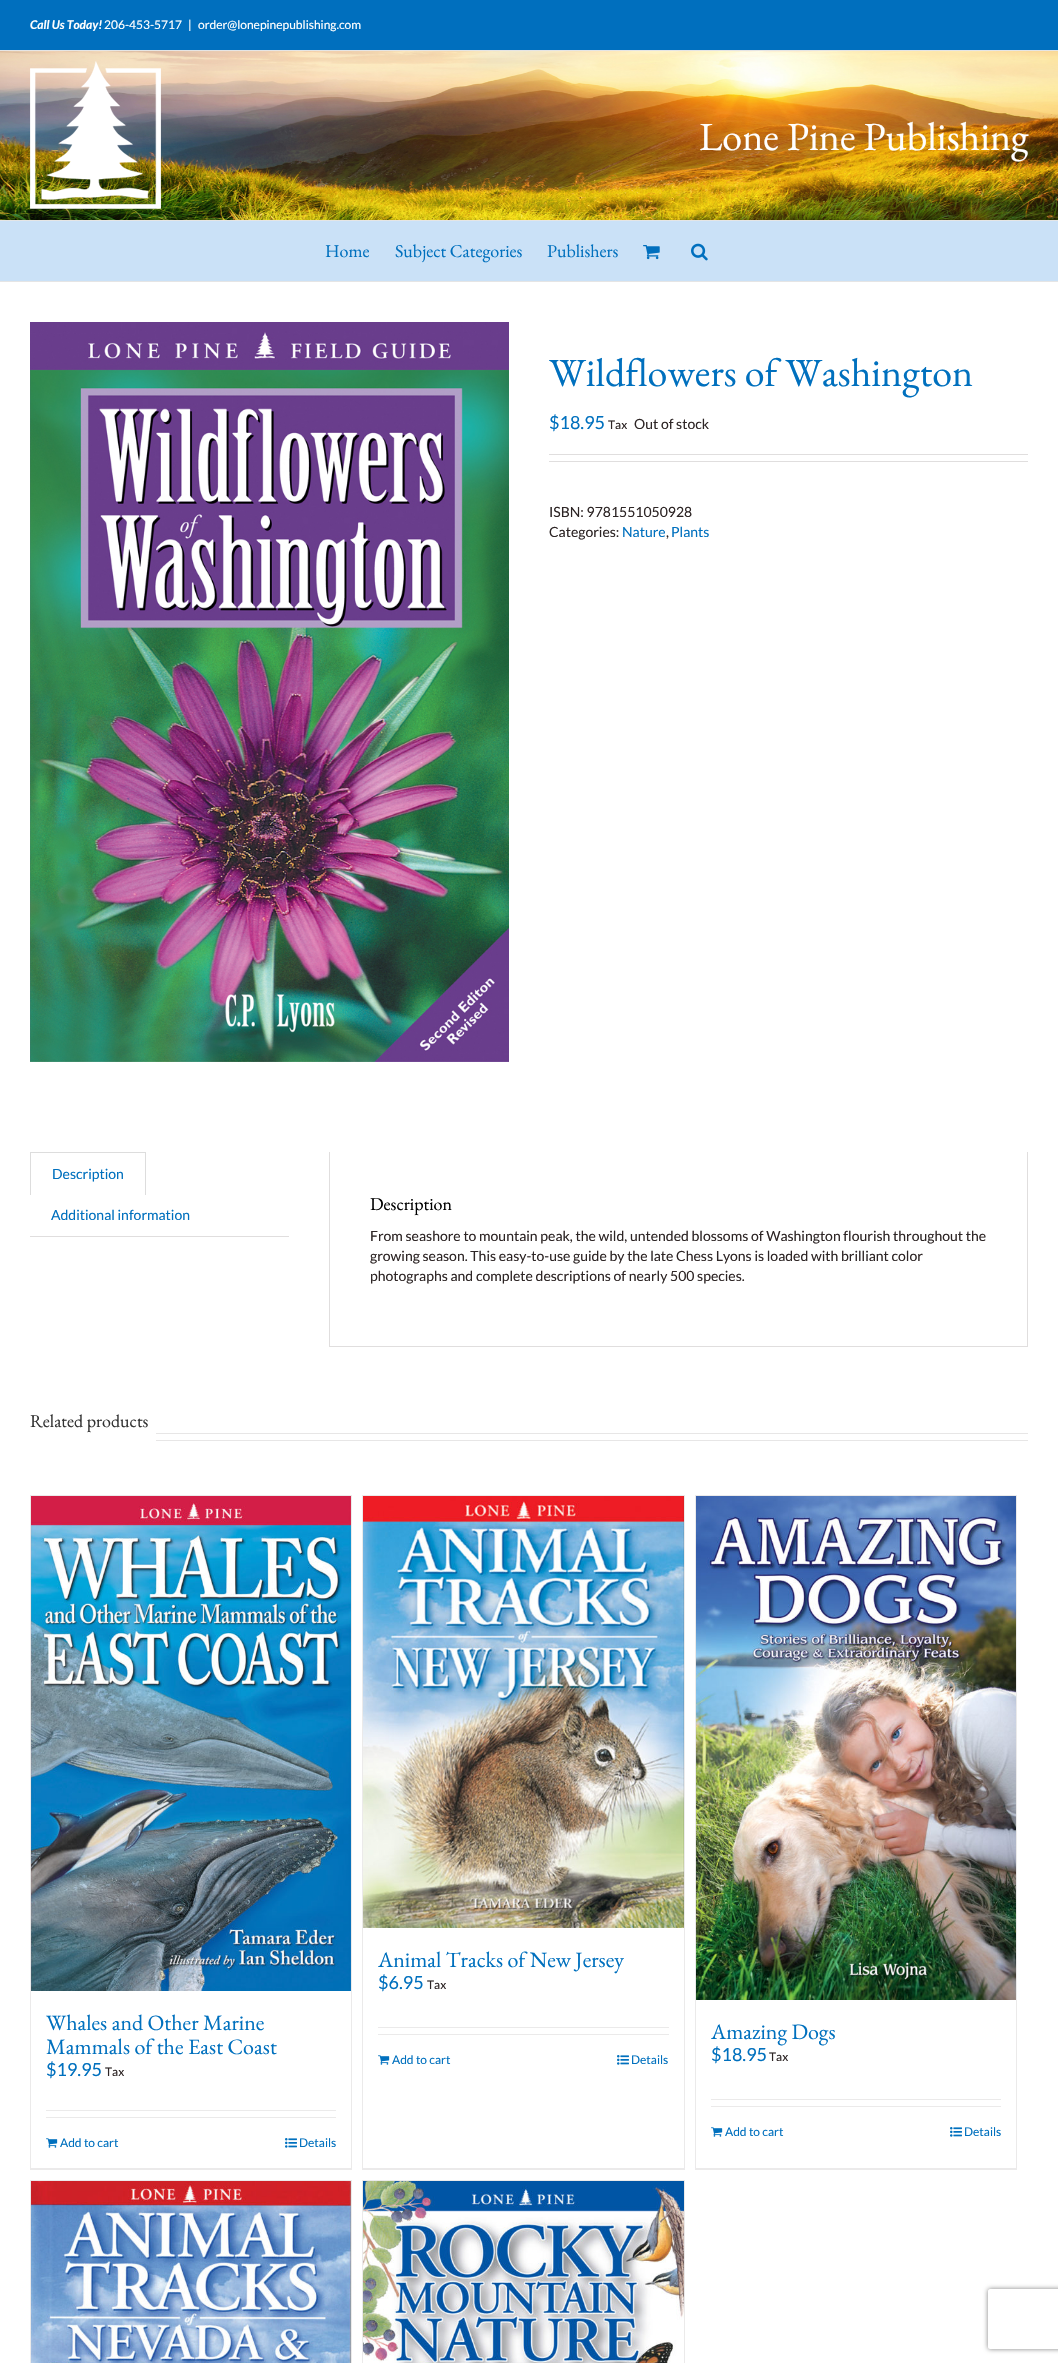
void draw(SkCanvas* canvas) {
    SkPaint paint;
    paint.setAntiAlias(true);
    auto face = [&](const char* family, int weight, float size, bool italic = false) {
        SkFontStyle style(weight, SkFontStyle::kNormal_Width,
            italic ? SkFontStyle::kItalic_Slant : SkFontStyle::kUpright_Slant);
        SkFont result(fontMgr->matchFamilyStyle(family, style), size);
        result.setSubpixel(true);
        return result;
    };
    auto write = [&](const char* s, float x, float y, const SkFont& font, SkColor color) {
        SkPaint ink(SkColor4f::FromColor(color));
        ink.setAntiAlias(true);
        canvas->drawString(s, x, y, font, ink);
    };
    auto block = [&](float x, float y, float w, float h, SkColor color) {
        SkPaint ink(SkColor4f::FromColor(color));
        ink.setAntiAlias(true);
        canvas->drawRect(SkRect::MakeXYWH(x, y, w, h), ink);
    };
    auto paste = [&](const char* path, float x, float y, float w, float h) {
        auto image = SkImages::DeferredFromEncodedData(SkData::MakeFromFileName(path));
        canvas->drawImageRect(image, SkRect::MakeXYWH(x, y, w, h), SkSamplingOptions());
    };
    canvas->clear(SK_ColorWHITE);
    block(0, 0, 1058, 50, SkColorSetRGB(0, 111, 190));
    block(0, 50, 1058, 1, SkColorSetRGB(229, 229, 229));
    auto kFont1 = face("Lato", 700, 12, true);
    write("Call Us Today!", 30, 29, kFont1, SK_ColorWHITE);
    auto kFont2 = face("Lato", 400, 12);
    write("206-453-5717", 104, 29, kFont2, SK_ColorWHITE);
    write("|", 188, 29, kFont2, SK_ColorWHITE);
    write("order@lonepinepublishing.com", 198, 29, kFont2, SK_ColorWHITE);
    paste("pic1.png", 0, 51, 1058, 169);
    block(0, 220, 1058, 1, SkColorSetRGB(229, 229, 229));
    paste("pic2.png", 30, 61, 131, 148);
    auto kFont3 = face("EB Garamond", 400, 40);
    write("Lone Pine Publishing", 699, 150, kFont3, SK_ColorWHITE);
    block(0, 221, 1058, 60, SkColorSetRGB(202, 225, 247));
    block(0, 281, 1058, 1, SkColorSetRGB(229, 229, 229));
    auto kFont4 = face("EB Garamond", 400, 18);
    write("Home", 325, 257, kFont4, SkColorSetRGB(0, 112, 190));
    write("Subject Categories", 395, 257, kFont4, SkColorSetRGB(0, 112, 190));
    write("Publishers", 547, 257, kFont4, SkColorSetRGB(0, 112, 190));
    paste("pic3.png", 643, 245, 17, 15);
    paste("pic4.png", 691, 243, 17, 18);
    paste("pic5.png", 30, 322, 479, 740);
    write("Wildflowers of Washington", 549, 386, kFont3, SkColorSetRGB(0, 112, 190));
    auto kFont5 = face("Lato", 400, 18);
    write("$18.95", 549, 429, kFont5, SkColorSetRGB(0, 112, 190));
    write("Tax", 608, 429, kFont2, SkColorSetRGB(45, 37, 37));
    auto kFont6 = face("Lato", 400, 14);
    write("Out of stock", 634, 429, kFont6, SkColorSetRGB(45, 37, 37));
    block(549, 454, 479, 1, SkColorSetRGB(224, 222, 222));
    block(549, 461, 479, 1, SkColorSetRGB(224, 222, 222));
    write("ISBN: 9781551050928", 549, 517, kFont6, SkColorSetRGB(45, 37, 37));
    write("Categories:", 549, 537, kFont6, SkColorSetRGB(45, 37, 37));
    write("Nature", 622, 537, kFont6, SkColorSetRGB(0, 112, 190));
    write(",", 666, 537, kFont6, SkColorSetRGB(45, 37, 37));
    write("Plants", 671, 537, kFont6, SkColorSetRGB(0, 112, 190));
    block(30, 1236, 259, 1, SkColorSetRGB(224, 222, 222));
    block(30, 1152, 116, 1, SkColorSetRGB(221, 221, 221));
    block(145, 1152, 1, 43, SkColorSetRGB(221, 221, 221));
    block(30, 1152, 1, 43, SkColorSetRGB(221, 221, 221));
    write("Description", 52, 1179, kFont6, SkColorSetRGB(0, 112, 190));
    write("Additional information", 51, 1220, kFont6, SkColorSetRGB(0, 112, 190));
    block(1027, 1152, 1, 195, SkColorSetRGB(224, 222, 222));
    block(329, 1346, 699, 1, SkColorSetRGB(224, 222, 222));
    block(329, 1152, 1, 195, SkColorSetRGB(224, 222, 222));
    write("Description", 370, 1210, kFont4, SK_ColorBLACK);
    write("From seashore to mountain peak, the wild, untended blossoms of Washington flourish throughout the", 370, 1241, kFont6, SkColorSetRGB(45, 37, 37));
    write("growing season. This easy-to-use guide by the late Chess Lyons is loaded with brilliant color", 370, 1261, kFont6, SkColorSetRGB(45, 37, 37));
    write("photographs and complete descriptions of nearly 500 species.", 370, 1281, kFont6, SkColorSetRGB(45, 37, 37));
    write("Related products", 30, 1427, kFont4, SkColorSetRGB(51, 51, 51));
    block(156, 1433, 872, 1, SkColorSetRGB(231, 230, 230));
    block(156, 1440, 872, 1, SkColorSetRGB(231, 230, 230));
    block(30, 1495, 322, 1, SkColorSetRGB(235, 234, 234));
    block(351, 1495, 1, 675, SkColorSetRGB(235, 234, 234));
    block(30, 2168, 322, 2, SkColorSetRGB(235, 234, 234));
    block(30, 1495, 1, 675, SkColorSetRGB(235, 234, 234));
    paste("pic6.png", 31, 1496, 320, 495);
    auto kFont7 = face("EB Garamond", 400, 22);
    write("Whales and Other Marine", 46, 2030, kFont7, SkColorSetRGB(0, 112, 190));
    write("Mammals of the East Coast", 46, 2054, kFont7, SkColorSetRGB(0, 112, 190));
    write("$19.95", 46, 2076, kFont5, SkColorSetRGB(0, 112, 190));
    write("Tax", 105, 2076, kFont2, SkColorSetRGB(45, 37, 37));
    block(46, 2110, 290, 1, SkColorSetRGB(235, 234, 234));
    block(46, 2117, 290, 1, SkColorSetRGB(235, 234, 234));
    paste("pic7.png", 46, 2138, 12, 10);
    write("Add to cart", 60, 2147, kFont2, SkColorSetRGB(0, 112, 190));
    paste("pic8.png", 285, 2138, 12, 10);
    write("Details", 299, 2147, kFont2, SkColorSetRGB(0, 112, 190));
    block(362, 1495, 323, 1, SkColorSetRGB(235, 234, 234));
    block(684, 1495, 1, 675, SkColorSetRGB(235, 234, 234));
    block(362, 2168, 323, 2, SkColorSetRGB(235, 234, 234));
    block(362, 1495, 1, 675, SkColorSetRGB(235, 234, 234));
    paste("pic9.png", 363, 1496, 321, 432);
    write("Animal Tracks of New Jersey", 378, 1967, kFont7, SkColorSetRGB(0, 112, 190));
    write("$6.95", 378, 1989, kFont5, SkColorSetRGB(0, 112, 190));
    write("Tax", 427, 1989, kFont2, SkColorSetRGB(45, 37, 37));
    block(378, 2027, 291, 1, SkColorSetRGB(235, 234, 234));
    block(378, 2034, 291, 1, SkColorSetRGB(235, 234, 234));
    paste("pic7.png", 378, 2055, 12, 10);
    write("Add to cart", 392, 2064, kFont2, SkColorSetRGB(0, 112, 190));
    paste("pic8.png", 617, 2055, 12, 10);
    write("Details", 631, 2064, kFont2, SkColorSetRGB(0, 112, 190));
    block(695, 1495, 322, 1, SkColorSetRGB(235, 234, 234));
    block(1016, 1495, 1, 675, SkColorSetRGB(235, 234, 234));
    block(695, 2168, 322, 2, SkColorSetRGB(235, 234, 234));
    block(695, 1495, 1, 675, SkColorSetRGB(235, 234, 234));
    paste("pic10.png", 696, 1496, 320, 504);
    write("Amazing Dogs", 711, 2039, kFont7, SkColorSetRGB(0, 112, 190));
    write("$18.95", 711, 2061, kFont5, SkColorSetRGB(0, 112, 190));
    write("Tax", 769, 2061, kFont2, SkColorSetRGB(45, 37, 37));
    block(711, 2099, 290, 1, SkColorSetRGB(235, 234, 234));
    block(711, 2106, 290, 1, SkColorSetRGB(235, 234, 234));
    paste("pic7.png", 711, 2127, 12, 10);
    write("Add to cart", 725, 2136, kFont2, SkColorSetRGB(0, 112, 190));
    paste("pic8.png", 950, 2127, 12, 10);
    write("Details", 964, 2136, kFont2, SkColorSetRGB(0, 112, 190));
    block(30, 2180, 322, 1, SkColorSetRGB(235, 234, 234));
    block(351, 2180, 1, 183, SkColorSetRGB(235, 234, 234));
    block(30, 2180, 1, 183, SkColorSetRGB(235, 234, 234));
    paste("pic11.png", 31, 2181, 320, 182);
    block(362, 2180, 323, 1, SkColorSetRGB(235, 234, 234));
    block(684, 2180, 1, 183, SkColorSetRGB(235, 234, 234));
    block(362, 2180, 1, 183, SkColorSetRGB(235, 234, 234));
    paste("pic12.png", 363, 2181, 321, 182);
    canvas->save();
    canvas->clipPath(SkPathBuilder(SkPathFillType::kEvenOdd).moveTo(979, 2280).lineTo(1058, 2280).lineTo(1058, 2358).lineTo(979, 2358).close().moveTo(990, 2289).lineTo(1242, 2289).cubicTo(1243, 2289, 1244, 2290, 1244, 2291).lineTo(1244, 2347).cubicTo(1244, 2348, 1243, 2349, 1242, 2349).lineTo(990, 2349).cubicTo(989, 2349, 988, 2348, 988, 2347).lineTo(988, 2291).cubicTo(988, 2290, 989, 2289, 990, 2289).close().detach(), true);
    paint.setColor(SkColorSetRGB(128, 128, 128));
    paint.setMaskFilter(SkMaskFilter::MakeBlur(kNormal_SkBlurStyle, 2.5f));
    canvas->drawRoundRect(SkRect::MakeXYWH(988, 2289, 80, 60), 2, 2, paint);
    paint.setMaskFilter(nullptr);
    canvas->restore();
}
